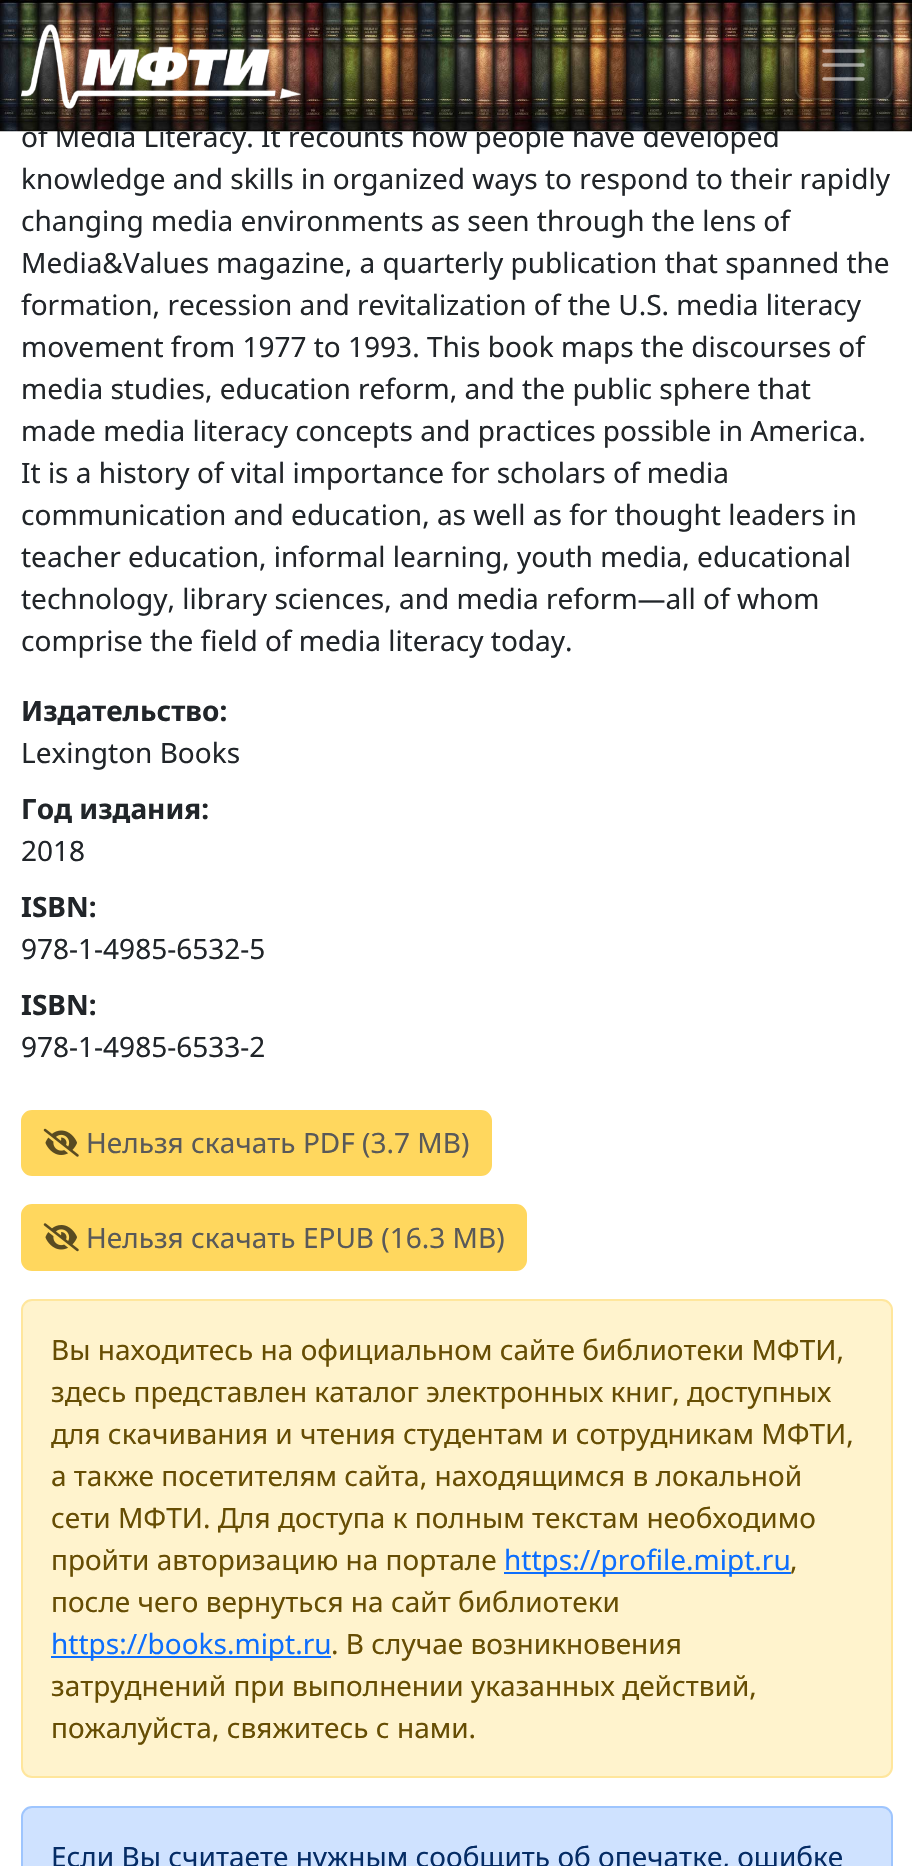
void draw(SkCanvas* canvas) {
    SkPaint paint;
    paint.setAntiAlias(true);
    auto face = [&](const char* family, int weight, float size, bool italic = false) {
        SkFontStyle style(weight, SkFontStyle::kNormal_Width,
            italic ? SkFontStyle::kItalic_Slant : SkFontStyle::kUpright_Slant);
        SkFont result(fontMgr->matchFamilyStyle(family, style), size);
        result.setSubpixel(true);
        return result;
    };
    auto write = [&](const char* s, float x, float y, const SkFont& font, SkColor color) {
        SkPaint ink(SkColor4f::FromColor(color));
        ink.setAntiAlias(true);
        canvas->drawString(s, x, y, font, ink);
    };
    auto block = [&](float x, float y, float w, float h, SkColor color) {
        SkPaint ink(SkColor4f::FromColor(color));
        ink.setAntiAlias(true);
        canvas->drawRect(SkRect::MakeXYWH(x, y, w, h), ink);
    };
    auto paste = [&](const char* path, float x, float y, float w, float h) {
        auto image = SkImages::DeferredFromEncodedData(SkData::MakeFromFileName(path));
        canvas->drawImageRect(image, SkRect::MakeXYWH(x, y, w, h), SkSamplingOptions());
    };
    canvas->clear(SK_ColorWHITE);
    auto kFont1 = face("Noto Sans", 400, 28);
    write("of Media Literacy. It recounts how people have developed", 21, 147, kFont1, SkColorSetRGB(33, 37, 41));
    paste("pic1.png", 0, 0, 912, 132);
    paste("pic2.png", 21, 24, 280, 85);
    paint.setStyle(SkPaint::kStroke_Style);
    paint.setStrokeWidth(2);
    paint.setColor(SkColorSetARGB(26, 255, 255, 255));
    canvas->drawRoundRect(SkRect::MakeXYWH(796, 31, 96, 68), 10, 10, paint);
    paint.setStrokeWidth(3.5f);
    paint.setStrokeCap(SkPaint::kRound_Cap);
    paint.setColor(SkColorSetARGB(140, 255, 255, 255));
    canvas->drawPath(SkPathBuilder().moveTo(824, 51).lineTo(863, 51).moveTo(824, 65).lineTo(863, 65).moveTo(824, 79).lineTo(863, 79).detach(), paint);
    write("knowledge and skills in organized ways to respond to their rapidly", 21, 189, kFont1, SkColorSetRGB(33, 37, 41));
    write("changing media environments as seen through the lens of", 21, 231, kFont1, SkColorSetRGB(33, 37, 41));
    write("Media&Values magazine, a quarterly publication that spanned the", 21, 273, kFont1, SkColorSetRGB(33, 37, 41));
    write("formation, recession and revitalization of the U.S. media literacy", 21, 315, kFont1, SkColorSetRGB(33, 37, 41));
    write("movement from 1977 to 1993. This book maps the discourses of", 21, 357, kFont1, SkColorSetRGB(33, 37, 41));
    write("media studies, education reform, and the public sphere that", 21, 399, kFont1, SkColorSetRGB(33, 37, 41));
    write("made media literacy concepts and practices possible in America.", 21, 441, kFont1, SkColorSetRGB(33, 37, 41));
    write("It is a history of vital importance for scholars of media", 21, 483, kFont1, SkColorSetRGB(33, 37, 41));
    write("communication and education, as well as for thought leaders in", 21, 525, kFont1, SkColorSetRGB(33, 37, 41));
    write("teacher education, informal learning, youth media, educational", 21, 567, kFont1, SkColorSetRGB(33, 37, 41));
    write("technology, library sciences, and media reform—all of whom", 21, 609, kFont1, SkColorSetRGB(33, 37, 41));
    write("comprise the field of media literacy today.", 21, 651, kFont1, SkColorSetRGB(33, 37, 41));
    auto kFont2 = face("Noto Sans", 700, 28);
    write("Издательство:", 21, 721, kFont2, SkColorSetRGB(33, 37, 41));
    write("Lexington Books", 21, 763, kFont1, SkColorSetRGB(33, 37, 41));
    write("Год издания:", 21, 819, kFont2, SkColorSetRGB(33, 37, 41));
    write("2018", 21, 861, kFont1, SkColorSetRGB(33, 37, 41));
    write("ISBN:", 21, 917, kFont2, SkColorSetRGB(33, 37, 41));
    write("978-1-4985-6532-5", 21, 959, kFont1, SkColorSetRGB(33, 37, 41));
    write("ISBN:", 21, 1015, kFont2, SkColorSetRGB(33, 37, 41));
    write("978-1-4985-6533-2", 21, 1057, kFont1, SkColorSetRGB(33, 37, 41));
    paint.setStyle(SkPaint::kFill_Style);
    paint.setColor(SkColorSetRGB(255, 215, 94));
    canvas->drawRoundRect(SkRect::MakeXYWH(22, 1111, 469, 64), 10, 10, paint);
    paint.setStyle(SkPaint::kStroke_Style);
    paint.setStrokeWidth(2);
    paint.setStrokeCap(SkPaint::kButt_Cap);
    canvas->drawRoundRect(SkRect::MakeXYWH(22, 1111, 469, 64), 10, 10, paint);
    paste("pic3.png", 43, 1128, 36, 29);
    write("Нельзя скачать PDF (3.7 MB)", 86, 1153, kFont1, SkColorSetRGB(89, 89, 89));
    paint.setStyle(SkPaint::kFill_Style);
    canvas->drawRoundRect(SkRect::MakeXYWH(22, 1205, 504, 65), 10, 10, paint);
    paint.setStyle(SkPaint::kStroke_Style);
    canvas->drawRoundRect(SkRect::MakeXYWH(22, 1205, 504, 65), 10, 10, paint);
    paste("pic4.png", 43, 1223, 36, 29);
    write("Нельзя скачать EPUB (16.3 MB)", 86, 1248, kFont1, SkColorSetRGB(89, 89, 89));
    paint.setStyle(SkPaint::kFill_Style);
    paint.setColor(SkColorSetRGB(255, 243, 205));
    canvas->drawRoundRect(SkRect::MakeXYWH(22, 1300, 870, 477), 10, 10, paint);
    paint.setStyle(SkPaint::kStroke_Style);
    paint.setColor(SkColorSetRGB(255, 230, 156));
    canvas->drawRoundRect(SkRect::MakeXYWH(22, 1300, 870, 477), 10, 10, paint);
    write("Вы находитесь на официальном сайте библиотеки МФТИ,", 51, 1360, kFont1, SkColorSetRGB(102, 77, 3));
    write("здесь представлен каталог электронных книг, доступных", 51, 1402, kFont1, SkColorSetRGB(102, 77, 3));
    write("для скачивания и чтения студентам и сотрудникам МФТИ,", 51, 1444, kFont1, SkColorSetRGB(102, 77, 3));
    write("а также посетителям сайта, находящимся в локальной", 51, 1486, kFont1, SkColorSetRGB(102, 77, 3));
    write("сети МФТИ. Для доступа к полным текстам необходимо", 51, 1528, kFont1, SkColorSetRGB(102, 77, 3));
    write("пройти авторизацию на портале", 51, 1570, kFont1, SkColorSetRGB(102, 77, 3));
    block(504, 1572, 287, 2, SkColorSetRGB(13, 110, 253));
    write("https://profile.mipt.ru", 504, 1570, kFont1, SkColorSetRGB(13, 110, 253));
    write(",", 790, 1570, kFont1, SkColorSetRGB(102, 77, 3));
    write("после чего вернуться на сайт библиотеки", 51, 1612, kFont1, SkColorSetRGB(102, 77, 3));
    block(51, 1656, 280, 2, SkColorSetRGB(13, 110, 253));
    write("https://books.mipt.ru", 51, 1654, kFont1, SkColorSetRGB(13, 110, 253));
    write(". В случае возникновения", 331, 1654, kFont1, SkColorSetRGB(102, 77, 3));
    write("затруднений при выполнении указанных действий,", 51, 1696, kFont1, SkColorSetRGB(102, 77, 3));
    write("пожалуйста, свяжитесь с нами.", 51, 1738, kFont1, SkColorSetRGB(102, 77, 3));
    paint.setStyle(SkPaint::kFill_Style);
    paint.setColor(SkColorSetRGB(207, 226, 255));
    canvas->drawRoundRect(SkRect::MakeXYWH(22, 1807, 870, 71), 10, 10, paint);
    paint.setStyle(SkPaint::kStroke_Style);
    paint.setColor(SkColorSetRGB(158, 197, 254));
    canvas->drawRoundRect(SkRect::MakeXYWH(22, 1807, 870, 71), 10, 10, paint);
    write("Если Вы считаете нужным сообщить об опечатке, ошибке", 51, 1867, kFont1, SkColorSetRGB(5, 44, 101));
}
